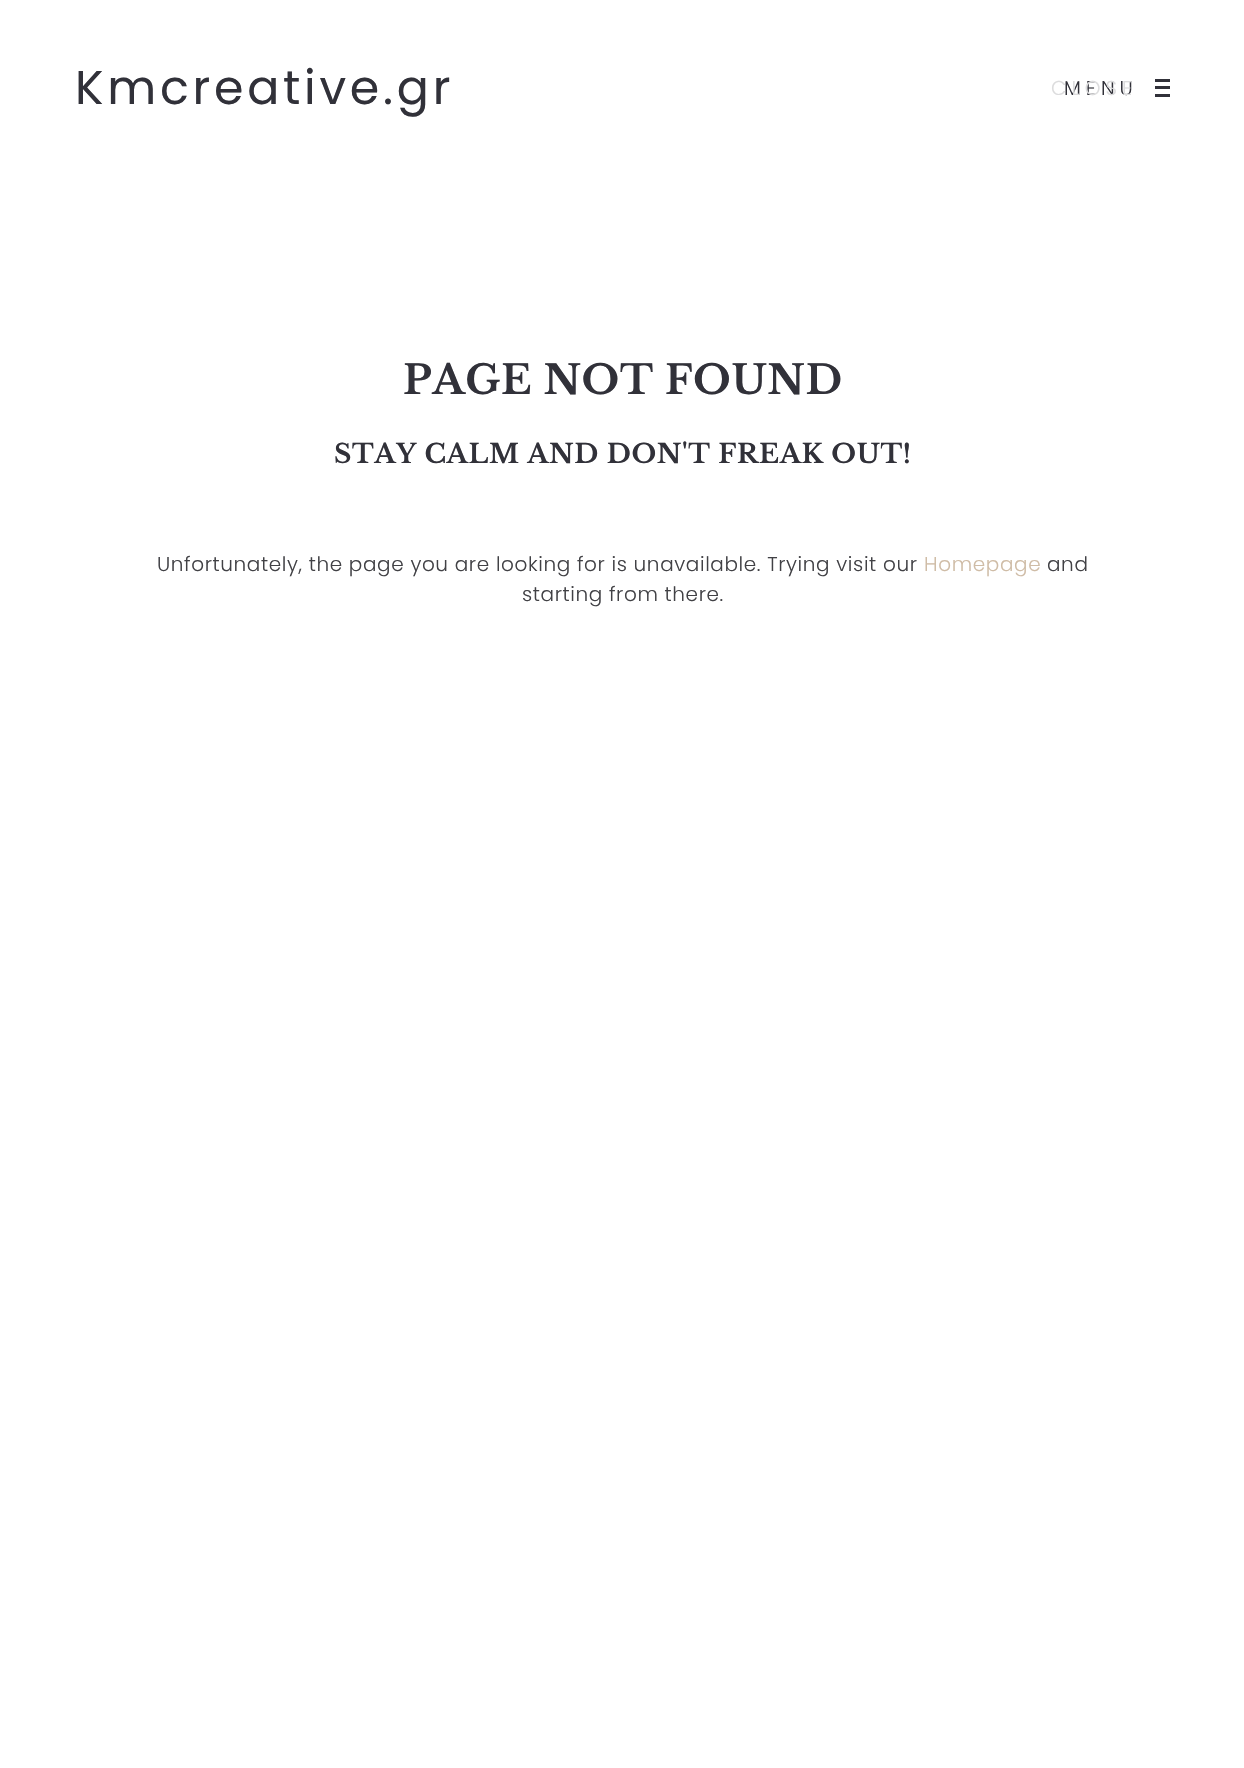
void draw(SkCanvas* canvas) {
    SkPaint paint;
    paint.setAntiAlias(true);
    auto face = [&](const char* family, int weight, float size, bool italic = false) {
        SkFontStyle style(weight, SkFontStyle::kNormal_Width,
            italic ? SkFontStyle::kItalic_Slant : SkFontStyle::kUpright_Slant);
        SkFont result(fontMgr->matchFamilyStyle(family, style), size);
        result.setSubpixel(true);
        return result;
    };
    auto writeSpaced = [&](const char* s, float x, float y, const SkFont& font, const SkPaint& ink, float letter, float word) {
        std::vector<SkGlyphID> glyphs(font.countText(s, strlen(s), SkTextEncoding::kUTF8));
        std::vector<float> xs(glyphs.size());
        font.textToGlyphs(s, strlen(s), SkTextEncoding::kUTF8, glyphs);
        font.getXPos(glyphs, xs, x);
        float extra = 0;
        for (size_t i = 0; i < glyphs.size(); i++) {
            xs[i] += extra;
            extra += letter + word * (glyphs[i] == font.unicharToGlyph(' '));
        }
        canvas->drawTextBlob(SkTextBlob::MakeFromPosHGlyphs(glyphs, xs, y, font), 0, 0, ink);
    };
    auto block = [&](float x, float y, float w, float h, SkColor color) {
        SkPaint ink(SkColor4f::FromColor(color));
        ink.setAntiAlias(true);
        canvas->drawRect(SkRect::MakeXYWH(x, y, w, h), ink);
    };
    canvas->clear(SK_ColorWHITE);
    auto kFont1 = face("Poppins", 400, 47.5f);
    paint.setColor(SkColorSetRGB(49, 49, 57));
    writeSpaced("Kmcreative.gr", 75, 104, kFont1, paint, 3.75f, 0);
    auto kFont2 = face("Poppins", 300, 20);
    writeSpaced("MENU", 1064, 95, kFont2, paint, 5, 0);
    paint.setColor(SkColorSetRGB(220, 220, 221));
    writeSpaced("CLOSE", 1051, 95, kFont2, paint, 5, 0);
    block(1155, 79, 15, 3, SkColorSetRGB(49, 49, 57));
    block(1155, 86, 15, 3, SkColorSetRGB(49, 49, 57));
    block(1155, 94, 15, 3, SkColorSetRGB(49, 49, 57));
    auto kFont3 = face("Libre Baskerville", 700, 40);
    paint.setColor(SkColorSetRGB(49, 49, 57));
    writeSpaced("PAGE NOT FOUND", 403, 394, kFont3, paint, 0.62f, 0);
    auto kFont4 = face("Libre Baskerville", 700, 26.25f);
    writeSpaced("STAY CALM AND DON'T FREAK OUT!", 334, 463, kFont4, paint, 0.62f, 0);
    paint.setColor(SkColorSetRGB(65, 65, 69));
    writeSpaced("Unfortunately, the page you are looking for is unavailable. Trying visit our", 157, 571, kFont2, paint, 0.62f, 0);
    paint.setColor(SkColorSetRGB(207, 188, 166));
    writeSpaced("Homepage", 924, 571, kFont2, paint, 0.62f, 0);
    paint.setColor(SkColorSetRGB(65, 65, 69));
    writeSpaced("and", 1047, 571, kFont2, paint, 0.62f, 0);
    writeSpaced("starting from there.", 522, 601, kFont2, paint, 0.62f, 0);
}
